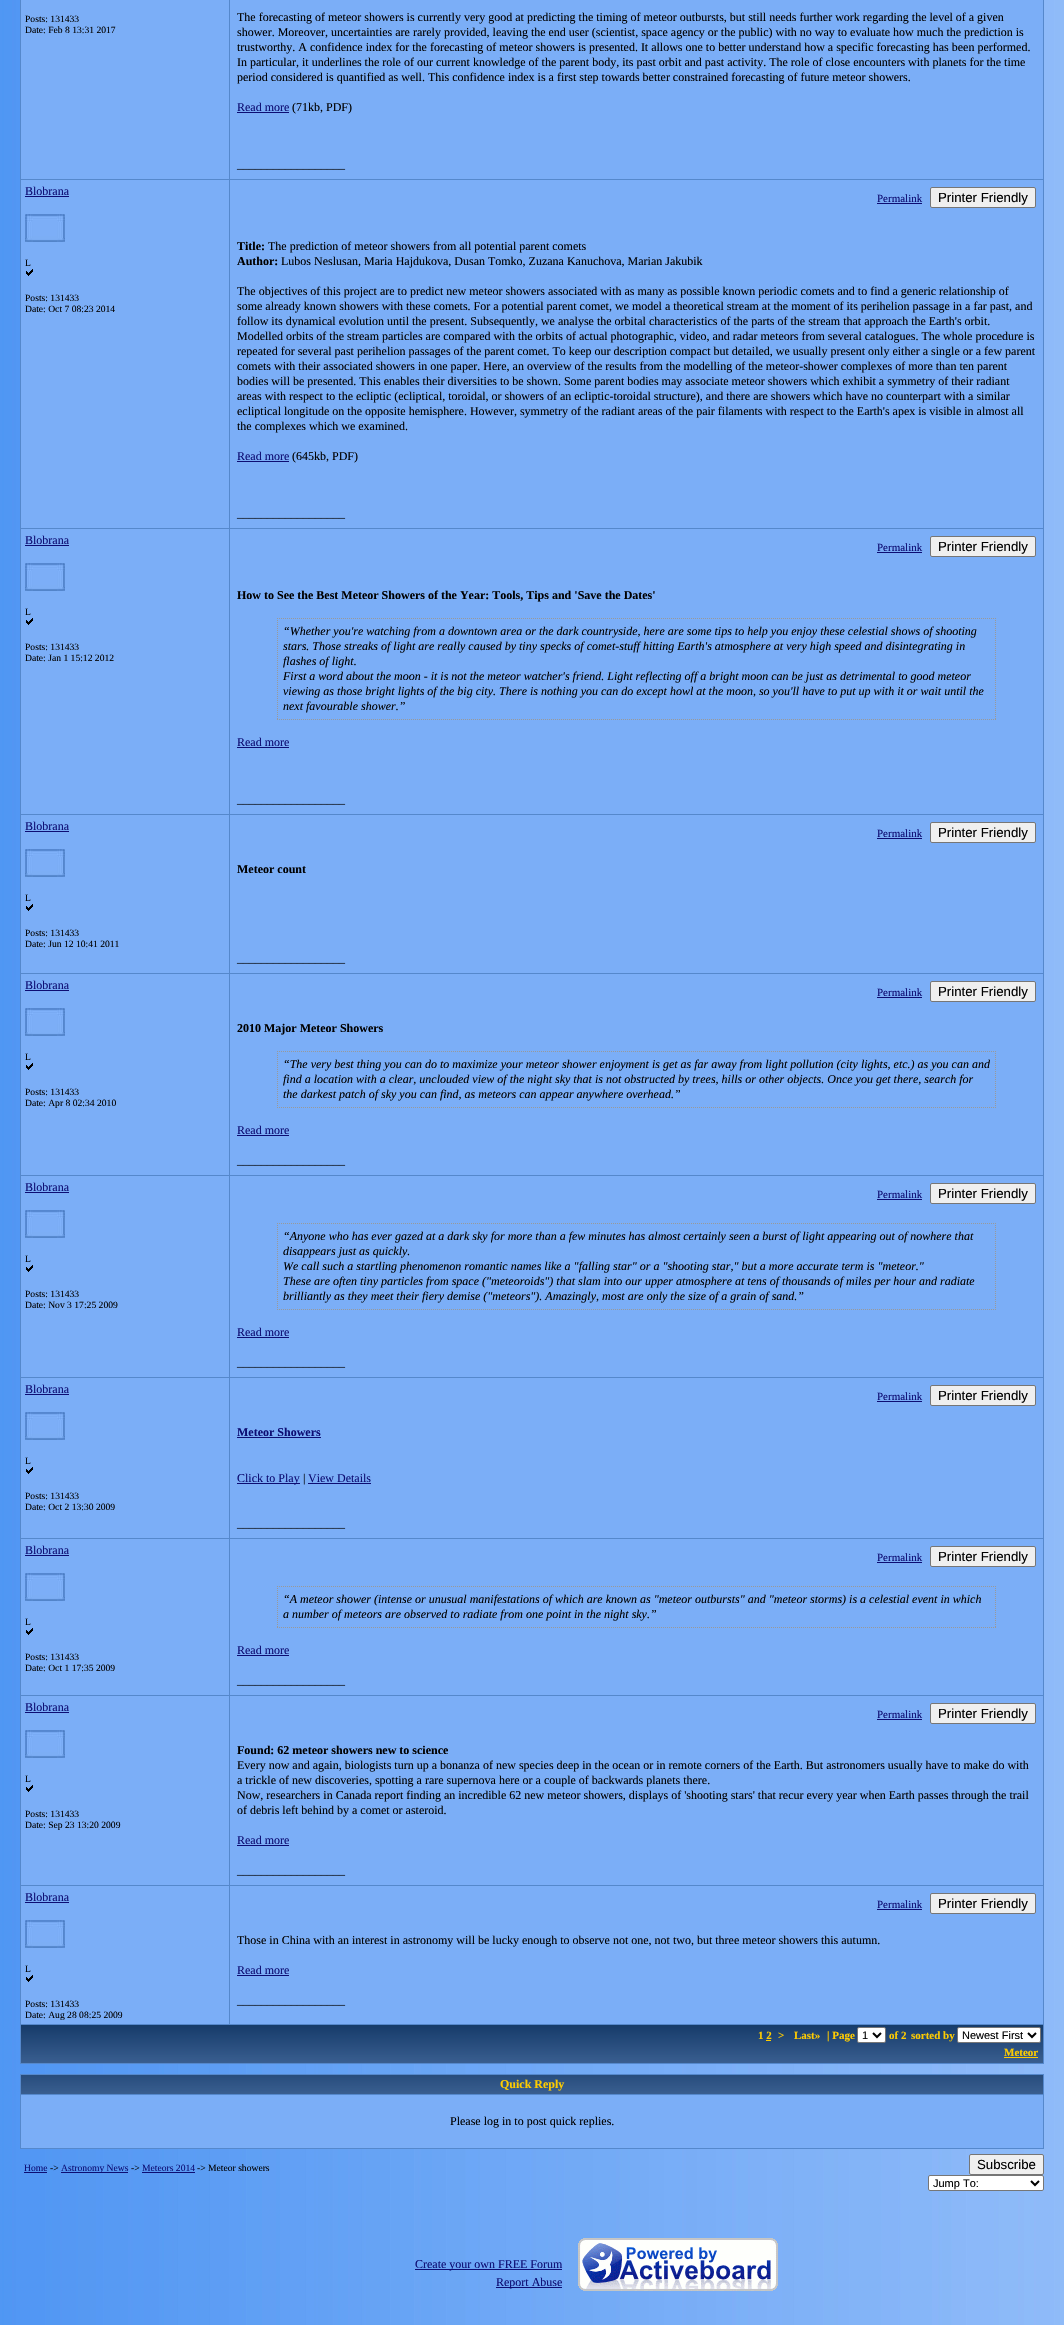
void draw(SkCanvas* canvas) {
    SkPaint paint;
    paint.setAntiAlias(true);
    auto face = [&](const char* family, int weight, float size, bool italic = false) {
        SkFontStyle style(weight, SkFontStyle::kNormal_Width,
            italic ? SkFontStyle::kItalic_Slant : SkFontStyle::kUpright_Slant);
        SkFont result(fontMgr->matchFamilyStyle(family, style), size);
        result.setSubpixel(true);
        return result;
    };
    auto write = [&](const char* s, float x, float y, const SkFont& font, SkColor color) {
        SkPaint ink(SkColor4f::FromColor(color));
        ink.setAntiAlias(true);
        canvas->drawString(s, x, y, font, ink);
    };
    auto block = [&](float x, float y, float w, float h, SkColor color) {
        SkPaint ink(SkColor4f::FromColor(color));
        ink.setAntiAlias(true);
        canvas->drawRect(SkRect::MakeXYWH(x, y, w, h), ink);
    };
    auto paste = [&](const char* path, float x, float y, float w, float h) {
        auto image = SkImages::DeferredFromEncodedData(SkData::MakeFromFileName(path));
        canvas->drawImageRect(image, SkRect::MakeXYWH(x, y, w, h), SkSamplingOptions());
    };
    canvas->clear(SK_ColorWHITE);
    paste("pic1.png", 0, 0, 1064, 2325);
    block(1043, 0, 1, 2064, SkColorSetRGB(85, 136, 204));
    block(20, 2063, 1024, 1, SkColorSetRGB(85, 136, 204));
    block(20, 0, 1, 2064, SkColorSetRGB(85, 136, 204));
    block(21, 0, 208, 179, SkColorSetRGB(123, 174, 247));
    auto kFont1 = face("Liberation Serif", 400, 9.6f);
    write("Posts: 131433", 25, 22, kFont1, SK_ColorBLACK);
    write("Date: Feb 8 13:31 2017", 25, 33, kFont1, SK_ColorBLACK);
    block(230, 0, 813, 179, SkColorSetRGB(123, 174, 247));
    block(229, 179, 815, 1, SkColorSetRGB(85, 136, 204));
    block(229, 528, 815, 1, SkColorSetRGB(85, 136, 204));
    block(229, 814, 815, 1, SkColorSetRGB(85, 136, 204));
    block(229, 973, 815, 1, SkColorSetRGB(85, 136, 204));
    block(229, 1175, 815, 1, SkColorSetRGB(85, 136, 204));
    block(229, 1377, 815, 1, SkColorSetRGB(85, 136, 204));
    block(229, 1538, 815, 1, SkColorSetRGB(85, 136, 204));
    block(229, 1695, 815, 1, SkColorSetRGB(85, 136, 204));
    block(229, 1885, 815, 1, SkColorSetRGB(85, 136, 204));
    block(20, 2024, 1024, 1, SkColorSetRGB(85, 136, 204));
    block(229, 1885, 1, 140, SkColorSetRGB(85, 136, 204));
    block(20, 1885, 210, 1, SkColorSetRGB(85, 136, 204));
    block(229, 1695, 1, 191, SkColorSetRGB(85, 136, 204));
    block(20, 1695, 210, 1, SkColorSetRGB(85, 136, 204));
    block(229, 1538, 1, 158, SkColorSetRGB(85, 136, 204));
    block(20, 1538, 210, 1, SkColorSetRGB(85, 136, 204));
    block(229, 1377, 1, 162, SkColorSetRGB(85, 136, 204));
    block(20, 1377, 210, 1, SkColorSetRGB(85, 136, 204));
    block(229, 1175, 1, 203, SkColorSetRGB(85, 136, 204));
    block(20, 1175, 210, 1, SkColorSetRGB(85, 136, 204));
    block(229, 973, 1, 203, SkColorSetRGB(85, 136, 204));
    block(20, 973, 210, 1, SkColorSetRGB(85, 136, 204));
    block(229, 814, 1, 160, SkColorSetRGB(85, 136, 204));
    block(20, 814, 210, 1, SkColorSetRGB(85, 136, 204));
    block(229, 528, 1, 287, SkColorSetRGB(85, 136, 204));
    block(20, 528, 210, 1, SkColorSetRGB(85, 136, 204));
    block(229, 179, 1, 350, SkColorSetRGB(85, 136, 204));
    block(20, 179, 210, 1, SkColorSetRGB(85, 136, 204));
    block(229, 0, 1, 180, SkColorSetRGB(85, 136, 204));
    auto kFont2 = face("Liberation Serif", 400, 12);
    write("The forecasting of meteor showers is currently very good at predicting the timing of meteor outbursts, but still needs further work regarding the level of a given", 237, 21, kFont2, SK_ColorBLACK);
    write("shower. Moreover, uncertainties are rarely provided, leaving the end user (scientist, space agency or the public) with no way to evaluate how much the prediction is", 237, 36, kFont2, SK_ColorBLACK);
    write("trustworthy. A confidence index for the forecasting of meteor showers is presented. It allows one to better understand how a specific forecasting has been performed.", 237, 51, kFont2, SK_ColorBLACK);
    write("In particular, it underlines the role of our current knowledge of the parent body, its past orbit and past activity. The role of close encounters with planets for the time", 237, 66, kFont2, SK_ColorBLACK);
    write("period considered is quantified as well. This confidence index is a first step towards better constrained forecasting of future meteor showers.", 237, 81, kFont2, SK_ColorBLACK);
    write("Read more", 237, 111, kFont2, SkColorSetRGB(13, 13, 115));
    block(237, 112, 52, 1, SkColorSetRGB(13, 13, 115));
    write("(71kb, PDF)", 292, 111, kFont2, SK_ColorBLACK);
    write("__________________", 237, 168, kFont2, SK_ColorBLACK);
    block(21, 180, 208, 348, SkColorSetRGB(123, 174, 247));
    write("Blobrana", 25, 195, kFont2, SkColorSetRGB(13, 13, 115));
    block(25, 196, 44, 1, SkColorSetRGB(13, 13, 115));
    paste("pic2.png", 25, 214, 40, 28);
    write("L", 25, 266, kFont1, SK_ColorBLACK);
    paste("pic3.png", 26, 269, 7, 7);
    write("Posts: 131433", 25, 301, kFont1, SK_ColorBLACK);
    write("Date: Oct 7 08:23 2014", 25, 312, kFont1, SK_ColorBLACK);
    block(230, 180, 813, 348, SkColorSetRGB(123, 174, 247));
    auto kFont3 = face("Liberation Serif", 400, 11);
    write("Permalink", 877, 202, kFont3, SkColorSetRGB(13, 13, 115));
    block(877, 203, 45, 1, SkColorSetRGB(13, 13, 115));
    paint.setColor(SkColorSetRGB(239, 239, 239));
    canvas->drawRoundRect(SkRect::MakeXYWH(930.5f, 187.5f, 105, 20), 1.5f, 1.5f, paint);
    paint.setStyle(SkPaint::kStroke_Style);
    paint.setStrokeWidth(1);
    paint.setColor(SkColorSetRGB(118, 118, 118));
    canvas->drawRoundRect(SkRect::MakeXYWH(930.5f, 187.5f, 105, 20), 1.5f, 1.5f, paint);
    auto kFont4 = face("Liberation Sans", 400, 13.25f);
    write("Printer Friendly", 938, 202, kFont4, SK_ColorBLACK);
    auto kFont5 = face("Liberation Serif", 700, 12);
    write("Title:", 237, 250, kFont5, SK_ColorBLACK);
    write("The prediction of meteor showers from all potential parent comets", 268, 250, kFont2, SK_ColorBLACK);
    write("Author:", 237, 265, kFont5, SK_ColorBLACK);
    write("Lubos Neslusan, Maria Hajdukova, Dusan Tomko, Zuzana Kanuchova, Marian Jakubik", 281, 265, kFont2, SK_ColorBLACK);
    write("The objectives of this project are to predict new meteor showers associated with as many as possible known periodic comets and to find a generic relationship of", 237, 295, kFont2, SK_ColorBLACK);
    write("some already known showers with these comets. For a potential parent comet, we model a theoretical stream at the moment of its perihelion passage in a far past, and", 237, 310, kFont2, SK_ColorBLACK);
    write("follow its dynamical evolution until the present. Subsequently, we analyse the orbital characteristics of the parts of the stream that approach the Earth's orbit.", 237, 325, kFont2, SK_ColorBLACK);
    write("Modelled orbits of the stream particles are compared with the orbits of actual photographic, video, and radar meteors from several catalogues. The whole procedure is", 237, 340, kFont2, SK_ColorBLACK);
    write("repeated for several past perihelion passages of the parent comet. To keep our description compact but detailed, we usually present only either a single or a few parent", 237, 355, kFont2, SK_ColorBLACK);
    write("comets with their associated showers in one paper. Here, an overview of the results from the modelling of the meteor-shower complexes of more than ten parent", 237, 370, kFont2, SK_ColorBLACK);
    write("bodies will be presented. This enables their diversities to be shown. Some parent bodies may associate meteor showers which exhibit a symmetry of their radiant", 237, 385, kFont2, SK_ColorBLACK);
    write("areas with respect to the ecliptic (ecliptical, toroidal, or showers of an ecliptic-toroidal structure), and there are showers which have no counterpart with a similar", 237, 400, kFont2, SK_ColorBLACK);
    write("ecliptical longitude on the opposite hemisphere. However, symmetry of the radiant areas of the pair filaments with respect to the Earth's apex is visible in almost all", 237, 415, kFont2, SK_ColorBLACK);
    write("the complexes which we examined.", 237, 430, kFont2, SK_ColorBLACK);
    write("Read more", 237, 460, kFont2, SkColorSetRGB(13, 13, 115));
    block(237, 461, 52, 1, SkColorSetRGB(13, 13, 115));
    write("(645kb, PDF)", 292, 460, kFont2, SK_ColorBLACK);
    write("__________________", 237, 517, kFont2, SK_ColorBLACK);
    block(21, 529, 208, 285, SkColorSetRGB(123, 174, 247));
    write("Blobrana", 25, 544, kFont2, SkColorSetRGB(13, 13, 115));
    block(25, 545, 44, 1, SkColorSetRGB(13, 13, 115));
    paste("pic2.png", 25, 563, 40, 28);
    write("L", 25, 615, kFont1, SK_ColorBLACK);
    paste("pic3.png", 26, 618, 7, 7);
    write("Posts: 131433", 25, 650, kFont1, SK_ColorBLACK);
    write("Date: Jan 1 15:12 2012", 25, 661, kFont1, SK_ColorBLACK);
    block(230, 529, 813, 285, SkColorSetRGB(123, 174, 247));
    write("Permalink", 877, 551, kFont3, SkColorSetRGB(13, 13, 115));
    block(877, 552, 45, 1, SkColorSetRGB(13, 13, 115));
    paint.setStyle(SkPaint::kFill_Style);
    paint.setColor(SkColorSetRGB(239, 239, 239));
    canvas->drawRoundRect(SkRect::MakeXYWH(930.5f, 536.5f, 105, 20), 1.5f, 1.5f, paint);
    paint.setStyle(SkPaint::kStroke_Style);
    paint.setColor(SkColorSetRGB(118, 118, 118));
    canvas->drawRoundRect(SkRect::MakeXYWH(930.5f, 536.5f, 105, 20), 1.5f, 1.5f, paint);
    write("Printer Friendly", 938, 551, kFont4, SK_ColorBLACK);
    write("How to See the Best Meteor Showers of the Year: Tools, Tips and 'Save the Dates'", 237, 599, kFont5, SK_ColorBLACK);
    paint.setColor(SkColorSetRGB(153, 153, 153));
    paint.setPathEffect(SkDashPathEffect::Make({{1, 1}}, 0));
    canvas->drawPath(SkPathBuilder().moveTo(277, 618.5f).lineTo(996, 618.5f).detach(), paint);
    paint.setPathEffect(nullptr);
    paint.setPathEffect(SkDashPathEffect::Make({{1, 1}}, 0));
    canvas->drawPath(SkPathBuilder().moveTo(995.5f, 618).lineTo(995.5f, 720).detach(), paint);
    paint.setPathEffect(nullptr);
    paint.setPathEffect(SkDashPathEffect::Make({{1, 1}}, 0));
    canvas->drawPath(SkPathBuilder().moveTo(277, 719.5f).lineTo(996, 719.5f).detach(), paint);
    paint.setPathEffect(nullptr);
    paint.setPathEffect(SkDashPathEffect::Make({{1, 1}}, 0));
    canvas->drawPath(SkPathBuilder().moveTo(277.5f, 618).lineTo(277.5f, 720).detach(), paint);
    paint.setPathEffect(nullptr);
    auto kFont6 = face("Liberation Serif", 400, 12, true);
    write("“Whether you're watching from a downtown area or the dark countryside, here are some tips to help you enjoy these celestial shows of shooting", 283, 635, kFont6, SK_ColorBLACK);
    write("stars. Those streaks of light are really caused by tiny specks of comet-stuff hitting Earth's atmosphere at very high speed and disintegrating in", 283, 650, kFont6, SK_ColorBLACK);
    write("flashes of light.", 283, 665, kFont6, SK_ColorBLACK);
    write("First a word about the moon - it is not the meteor watcher's friend. Light reflecting off a bright moon can be just as detrimental to good meteor", 283, 680, kFont6, SK_ColorBLACK);
    write("viewing as those bright lights of the big city. There is nothing you can do except howl at the moon, so you'll have to put up with it or wait until the", 283, 695, kFont6, SK_ColorBLACK);
    write("next favourable shower.”", 283, 710, kFont6, SK_ColorBLACK);
    write("Read more", 237, 746, kFont2, SkColorSetRGB(13, 13, 115));
    block(237, 747, 52, 1, SkColorSetRGB(13, 13, 115));
    write("__________________", 237, 803, kFont2, SK_ColorBLACK);
    block(21, 815, 208, 158, SkColorSetRGB(123, 174, 247));
    write("Blobrana", 25, 830, kFont2, SkColorSetRGB(13, 13, 115));
    block(25, 831, 44, 1, SkColorSetRGB(13, 13, 115));
    paste("pic2.png", 25, 849, 40, 28);
    write("L", 25, 901, kFont1, SK_ColorBLACK);
    paste("pic3.png", 26, 904, 7, 7);
    write("Posts: 131433", 25, 936, kFont1, SK_ColorBLACK);
    write("Date: Jun 12 10:41 2011", 25, 947, kFont1, SK_ColorBLACK);
    block(230, 815, 813, 158, SkColorSetRGB(123, 174, 247));
    write("Permalink", 877, 837, kFont3, SkColorSetRGB(13, 13, 115));
    block(877, 838, 45, 1, SkColorSetRGB(13, 13, 115));
    paint.setStyle(SkPaint::kFill_Style);
    paint.setColor(SkColorSetRGB(239, 239, 239));
    canvas->drawRoundRect(SkRect::MakeXYWH(930.5f, 822.5f, 105, 20), 1.5f, 1.5f, paint);
    paint.setStyle(SkPaint::kStroke_Style);
    paint.setColor(SkColorSetRGB(118, 118, 118));
    canvas->drawRoundRect(SkRect::MakeXYWH(930.5f, 822.5f, 105, 20), 1.5f, 1.5f, paint);
    write("Printer Friendly", 938, 837, kFont4, SK_ColorBLACK);
    write("Meteor count", 237, 873, kFont5, SK_ColorBLACK);
    write("__________________", 237, 962, kFont2, SK_ColorBLACK);
    block(21, 974, 208, 201, SkColorSetRGB(123, 174, 247));
    write("Blobrana", 25, 989, kFont2, SkColorSetRGB(13, 13, 115));
    block(25, 990, 44, 1, SkColorSetRGB(13, 13, 115));
    paste("pic2.png", 25, 1008, 40, 28);
    write("L", 25, 1060, kFont1, SK_ColorBLACK);
    paste("pic3.png", 26, 1063, 7, 7);
    write("Posts: 131433", 25, 1095, kFont1, SK_ColorBLACK);
    write("Date: Apr 8 02:34 2010", 25, 1106, kFont1, SK_ColorBLACK);
    block(230, 974, 813, 201, SkColorSetRGB(123, 174, 247));
    write("Permalink", 877, 996, kFont3, SkColorSetRGB(13, 13, 115));
    block(877, 997, 45, 1, SkColorSetRGB(13, 13, 115));
    paint.setStyle(SkPaint::kFill_Style);
    paint.setColor(SkColorSetRGB(239, 239, 239));
    canvas->drawRoundRect(SkRect::MakeXYWH(930.5f, 981.5f, 105, 20), 1.5f, 1.5f, paint);
    paint.setStyle(SkPaint::kStroke_Style);
    paint.setColor(SkColorSetRGB(118, 118, 118));
    canvas->drawRoundRect(SkRect::MakeXYWH(930.5f, 981.5f, 105, 20), 1.5f, 1.5f, paint);
    write("Printer Friendly", 938, 996, kFont4, SK_ColorBLACK);
    write("2010 Major Meteor Showers", 237, 1032, kFont5, SK_ColorBLACK);
    paint.setColor(SkColorSetRGB(153, 153, 153));
    paint.setPathEffect(SkDashPathEffect::Make({{1, 1}}, 0));
    canvas->drawPath(SkPathBuilder().moveTo(277, 1051.5f).lineTo(996, 1051.5f).detach(), paint);
    paint.setPathEffect(nullptr);
    paint.setPathEffect(SkDashPathEffect::Make({{1, 1}}, 0));
    canvas->drawPath(SkPathBuilder().moveTo(995.5f, 1051).lineTo(995.5f, 1108).detach(), paint);
    paint.setPathEffect(nullptr);
    paint.setPathEffect(SkDashPathEffect::Make({{1, 1}}, 0));
    canvas->drawPath(SkPathBuilder().moveTo(277, 1107.5f).lineTo(996, 1107.5f).detach(), paint);
    paint.setPathEffect(nullptr);
    paint.setPathEffect(SkDashPathEffect::Make({{1, 1}}, 0));
    canvas->drawPath(SkPathBuilder().moveTo(277.5f, 1051).lineTo(277.5f, 1108).detach(), paint);
    paint.setPathEffect(nullptr);
    write("“The very best thing you can do to maximize your meteor shower enjoyment is get as far away from light pollution (city lights, etc.) as you can and", 283, 1068, kFont6, SK_ColorBLACK);
    write("find a location with a clear, unclouded view of the night sky that is not obstructed by trees, hills or other objects. Once you get there, search for", 283, 1083, kFont6, SK_ColorBLACK);
    write("the darkest patch of sky you can find, as meteors can appear anywhere overhead.”", 283, 1098, kFont6, SK_ColorBLACK);
    write("Read more", 237, 1134, kFont2, SkColorSetRGB(13, 13, 115));
    block(237, 1135, 52, 1, SkColorSetRGB(13, 13, 115));
    write("__________________", 237, 1164, kFont2, SK_ColorBLACK);
    block(21, 1176, 208, 201, SkColorSetRGB(123, 174, 247));
    write("Blobrana", 25, 1191, kFont2, SkColorSetRGB(13, 13, 115));
    block(25, 1192, 44, 1, SkColorSetRGB(13, 13, 115));
    paste("pic2.png", 25, 1210, 40, 28);
    write("L", 25, 1262, kFont1, SK_ColorBLACK);
    paste("pic3.png", 26, 1265, 7, 7);
    write("Posts: 131433", 25, 1297, kFont1, SK_ColorBLACK);
    write("Date: Nov 3 17:25 2009", 25, 1308, kFont1, SK_ColorBLACK);
    block(230, 1176, 813, 201, SkColorSetRGB(123, 174, 247));
    write("Permalink", 877, 1198, kFont3, SkColorSetRGB(13, 13, 115));
    block(877, 1199, 45, 1, SkColorSetRGB(13, 13, 115));
    paint.setStyle(SkPaint::kFill_Style);
    paint.setColor(SkColorSetRGB(239, 239, 239));
    canvas->drawRoundRect(SkRect::MakeXYWH(930.5f, 1183.5f, 105, 20), 1.5f, 1.5f, paint);
    paint.setStyle(SkPaint::kStroke_Style);
    paint.setColor(SkColorSetRGB(118, 118, 118));
    canvas->drawRoundRect(SkRect::MakeXYWH(930.5f, 1183.5f, 105, 20), 1.5f, 1.5f, paint);
    write("Printer Friendly", 938, 1198, kFont4, SK_ColorBLACK);
    paint.setColor(SkColorSetRGB(153, 153, 153));
    paint.setPathEffect(SkDashPathEffect::Make({{1, 1}}, 0));
    canvas->drawPath(SkPathBuilder().moveTo(277, 1223.5f).lineTo(996, 1223.5f).detach(), paint);
    paint.setPathEffect(nullptr);
    paint.setPathEffect(SkDashPathEffect::Make({{1, 1}}, 0));
    canvas->drawPath(SkPathBuilder().moveTo(995.5f, 1223).lineTo(995.5f, 1310).detach(), paint);
    paint.setPathEffect(nullptr);
    paint.setPathEffect(SkDashPathEffect::Make({{1, 1}}, 0));
    canvas->drawPath(SkPathBuilder().moveTo(277, 1309.5f).lineTo(996, 1309.5f).detach(), paint);
    paint.setPathEffect(nullptr);
    paint.setPathEffect(SkDashPathEffect::Make({{1, 1}}, 0));
    canvas->drawPath(SkPathBuilder().moveTo(277.5f, 1223).lineTo(277.5f, 1310).detach(), paint);
    paint.setPathEffect(nullptr);
    write("“Anyone who has ever gazed at a dark sky for more than a few minutes has almost certainly seen a burst of light appearing out of nowhere that", 283, 1240, kFont6, SK_ColorBLACK);
    write("disappears just as quickly.", 283, 1255, kFont6, SK_ColorBLACK);
    write("We call such a startling phenomenon romantic names like a \"falling star\" or a \"shooting star,\" but a more accurate term is \"meteor.\"", 283, 1270, kFont6, SK_ColorBLACK);
    write("These are often tiny particles from space (\"meteoroids\") that slam into our upper atmosphere at tens of thousands of miles per hour and radiate", 283, 1285, kFont6, SK_ColorBLACK);
    write("brilliantly as they meet their fiery demise (\"meteors\"). Amazingly, most are only the size of a grain of sand.”", 283, 1300, kFont6, SK_ColorBLACK);
    write("Read more", 237, 1336, kFont2, SkColorSetRGB(13, 13, 115));
    block(237, 1337, 52, 1, SkColorSetRGB(13, 13, 115));
    write("__________________", 237, 1366, kFont2, SK_ColorBLACK);
    block(21, 1378, 208, 160, SkColorSetRGB(123, 174, 247));
    write("Blobrana", 25, 1393, kFont2, SkColorSetRGB(13, 13, 115));
    block(25, 1394, 44, 1, SkColorSetRGB(13, 13, 115));
    paste("pic2.png", 25, 1412, 40, 28);
    write("L", 25, 1464, kFont1, SK_ColorBLACK);
    paste("pic3.png", 26, 1467, 7, 7);
    write("Posts: 131433", 25, 1499, kFont1, SK_ColorBLACK);
    write("Date: Oct 2 13:30 2009", 25, 1510, kFont1, SK_ColorBLACK);
    block(230, 1378, 813, 160, SkColorSetRGB(123, 174, 247));
    write("Permalink", 877, 1400, kFont3, SkColorSetRGB(13, 13, 115));
    block(877, 1401, 45, 1, SkColorSetRGB(13, 13, 115));
    paint.setStyle(SkPaint::kFill_Style);
    paint.setColor(SkColorSetRGB(239, 239, 239));
    canvas->drawRoundRect(SkRect::MakeXYWH(930.5f, 1385.5f, 105, 20), 1.5f, 1.5f, paint);
    paint.setStyle(SkPaint::kStroke_Style);
    paint.setColor(SkColorSetRGB(118, 118, 118));
    canvas->drawRoundRect(SkRect::MakeXYWH(930.5f, 1385.5f, 105, 20), 1.5f, 1.5f, paint);
    write("Printer Friendly", 938, 1400, kFont4, SK_ColorBLACK);
    write("Meteor Showers", 237, 1436, kFont5, SkColorSetRGB(13, 13, 115));
    block(237, 1437, 84, 1, SkColorSetRGB(13, 13, 115));
    block(237, 1483, 63, 1, SkColorSetRGB(13, 13, 115));
    write("Click to Play", 237, 1482, kFont2, SkColorSetRGB(13, 13, 115));
    write("|", 303, 1482, kFont2, SK_ColorBLACK);
    write("View Details", 308, 1482, kFont2, SkColorSetRGB(13, 13, 115));
    block(308, 1483, 63, 1, SkColorSetRGB(13, 13, 115));
    write("__________________", 237, 1527, kFont2, SK_ColorBLACK);
    block(21, 1539, 208, 156, SkColorSetRGB(123, 174, 247));
    write("Blobrana", 25, 1554, kFont2, SkColorSetRGB(13, 13, 115));
    block(25, 1555, 44, 1, SkColorSetRGB(13, 13, 115));
    paste("pic2.png", 25, 1573, 40, 28);
    write("L", 25, 1625, kFont1, SK_ColorBLACK);
    paste("pic3.png", 26, 1628, 7, 7);
    write("Posts: 131433", 25, 1660, kFont1, SK_ColorBLACK);
    write("Date: Oct 1 17:35 2009", 25, 1671, kFont1, SK_ColorBLACK);
    block(230, 1539, 813, 156, SkColorSetRGB(123, 174, 247));
    write("Permalink", 877, 1561, kFont3, SkColorSetRGB(13, 13, 115));
    block(877, 1562, 45, 1, SkColorSetRGB(13, 13, 115));
    paint.setStyle(SkPaint::kFill_Style);
    paint.setColor(SkColorSetRGB(239, 239, 239));
    canvas->drawRoundRect(SkRect::MakeXYWH(930.5f, 1546.5f, 105, 20), 1.5f, 1.5f, paint);
    paint.setStyle(SkPaint::kStroke_Style);
    paint.setColor(SkColorSetRGB(118, 118, 118));
    canvas->drawRoundRect(SkRect::MakeXYWH(930.5f, 1546.5f, 105, 20), 1.5f, 1.5f, paint);
    write("Printer Friendly", 938, 1561, kFont4, SK_ColorBLACK);
    paint.setColor(SkColorSetRGB(153, 153, 153));
    paint.setPathEffect(SkDashPathEffect::Make({{1, 1}}, 0));
    canvas->drawPath(SkPathBuilder().moveTo(277, 1586.5f).lineTo(996, 1586.5f).detach(), paint);
    paint.setPathEffect(nullptr);
    paint.setPathEffect(SkDashPathEffect::Make({{1, 1}}, 0));
    canvas->drawPath(SkPathBuilder().moveTo(995.5f, 1586).lineTo(995.5f, 1628).detach(), paint);
    paint.setPathEffect(nullptr);
    paint.setPathEffect(SkDashPathEffect::Make({{1, 1}}, 0));
    canvas->drawPath(SkPathBuilder().moveTo(277, 1627.5f).lineTo(996, 1627.5f).detach(), paint);
    paint.setPathEffect(nullptr);
    paint.setPathEffect(SkDashPathEffect::Make({{1, 1}}, 0));
    canvas->drawPath(SkPathBuilder().moveTo(277.5f, 1586).lineTo(277.5f, 1628).detach(), paint);
    paint.setPathEffect(nullptr);
    write("“A meteor shower (intense or unusual manifestations of which are known as \"meteor outbursts\" and \"meteor storms) is a celestial event in which", 283, 1603, kFont6, SK_ColorBLACK);
    write("a number of meteors are observed to radiate from one point in the night sky.”", 283, 1618, kFont6, SK_ColorBLACK);
    write("Read more", 237, 1654, kFont2, SkColorSetRGB(13, 13, 115));
    block(237, 1655, 52, 1, SkColorSetRGB(13, 13, 115));
    write("__________________", 237, 1684, kFont2, SK_ColorBLACK);
    block(21, 1696, 208, 189, SkColorSetRGB(123, 174, 247));
    write("Blobrana", 25, 1711, kFont2, SkColorSetRGB(13, 13, 115));
    block(25, 1712, 44, 1, SkColorSetRGB(13, 13, 115));
    paste("pic2.png", 25, 1730, 40, 28);
    write("L", 25, 1782, kFont1, SK_ColorBLACK);
    paste("pic3.png", 26, 1785, 7, 7);
    write("Posts: 131433", 25, 1817, kFont1, SK_ColorBLACK);
    write("Date: Sep 23 13:20 2009", 25, 1828, kFont1, SK_ColorBLACK);
    block(230, 1696, 813, 189, SkColorSetRGB(123, 174, 247));
    write("Permalink", 877, 1718, kFont3, SkColorSetRGB(13, 13, 115));
    block(877, 1719, 45, 1, SkColorSetRGB(13, 13, 115));
    paint.setStyle(SkPaint::kFill_Style);
    paint.setColor(SkColorSetRGB(239, 239, 239));
    canvas->drawRoundRect(SkRect::MakeXYWH(930.5f, 1703.5f, 105, 20), 1.5f, 1.5f, paint);
    paint.setStyle(SkPaint::kStroke_Style);
    paint.setColor(SkColorSetRGB(118, 118, 118));
    canvas->drawRoundRect(SkRect::MakeXYWH(930.5f, 1703.5f, 105, 20), 1.5f, 1.5f, paint);
    write("Printer Friendly", 938, 1718, kFont4, SK_ColorBLACK);
    write("Found: 62 meteor showers new to science", 237, 1754, kFont5, SK_ColorBLACK);
    write("Every now and again, biologists turn up a bonanza of new species deep in the ocean or in remote corners of the Earth. But astronomers usually have to make do with", 237, 1769, kFont2, SK_ColorBLACK);
    write("a trickle of new discoveries, spotting a rare supernova here or a couple of backwards planets there.", 237, 1784, kFont2, SK_ColorBLACK);
    write("Now, researchers in Canada report finding an incredible 62 new meteor showers, displays of 'shooting stars' that recur every year when Earth passes through the trail", 237, 1799, kFont2, SK_ColorBLACK);
    write("of debris left behind by a comet or asteroid.", 237, 1814, kFont2, SK_ColorBLACK);
    write("Read more", 237, 1844, kFont2, SkColorSetRGB(13, 13, 115));
    block(237, 1845, 52, 1, SkColorSetRGB(13, 13, 115));
    write("__________________", 237, 1874, kFont2, SK_ColorBLACK);
    block(21, 1886, 208, 138, SkColorSetRGB(123, 174, 247));
    write("Blobrana", 25, 1901, kFont2, SkColorSetRGB(13, 13, 115));
    block(25, 1902, 44, 1, SkColorSetRGB(13, 13, 115));
    paste("pic2.png", 25, 1920, 40, 28);
    write("L", 25, 1972, kFont1, SK_ColorBLACK);
    paste("pic3.png", 26, 1975, 7, 7);
    write("Posts: 131433", 25, 2007, kFont1, SK_ColorBLACK);
    write("Date: Aug 28 08:25 2009", 25, 2018, kFont1, SK_ColorBLACK);
    block(230, 1886, 813, 138, SkColorSetRGB(123, 174, 247));
    write("Permalink", 877, 1908, kFont3, SkColorSetRGB(13, 13, 115));
    block(877, 1909, 45, 1, SkColorSetRGB(13, 13, 115));
    paint.setStyle(SkPaint::kFill_Style);
    paint.setColor(SkColorSetRGB(239, 239, 239));
    canvas->drawRoundRect(SkRect::MakeXYWH(930.5f, 1893.5f, 105, 20), 1.5f, 1.5f, paint);
    paint.setStyle(SkPaint::kStroke_Style);
    paint.setColor(SkColorSetRGB(118, 118, 118));
    canvas->drawRoundRect(SkRect::MakeXYWH(930.5f, 1893.5f, 105, 20), 1.5f, 1.5f, paint);
    write("Printer Friendly", 938, 1908, kFont4, SK_ColorBLACK);
    write("Those in China with an interest in astronomy will be lucky enough to observe not one, not two, but three meteor showers this autumn.", 237, 1944, kFont2, SK_ColorBLACK);
    write("Read more", 237, 1974, kFont2, SkColorSetRGB(13, 13, 115));
    block(237, 1975, 52, 1, SkColorSetRGB(13, 13, 115));
    write("__________________", 237, 2004, kFont2, SK_ColorBLACK);
    paste("pic4.png", 21, 2025, 1022, 38);
    auto kFont7 = face("Liberation Serif", 700, 11);
    write("1 2", 758, 2039, kFont7, SkColorSetRGB(255, 204, 0));
    write(">", 778, 2039, kFont7, SkColorSetRGB(255, 204, 0));
    write("Last»", 794, 2039, kFont7, SkColorSetRGB(255, 204, 0));
    write("| Page", 827, 2039, kFont7, SkColorSetRGB(255, 204, 0));
    paint.setStyle(SkPaint::kFill_Style);
    paint.setColor(SK_ColorWHITE);
    canvas->drawRoundRect(SkRect::MakeXYWH(857.5f, 2027.5f, 28, 15), 1.5f, 1.5f, paint);
    paint.setStyle(SkPaint::kStroke_Style);
    paint.setColor(SkColorSetRGB(118, 118, 118));
    canvas->drawRoundRect(SkRect::MakeXYWH(857.5f, 2027.5f, 28, 15), 1.5f, 1.5f, paint);
    paint.setStrokeWidth(2);
    paint.setColor(SK_ColorBLACK);
    canvas->drawPath(SkPathBuilder().moveTo(873, 2033).lineTo(877, 2037).lineTo(881, 2033).detach(), paint);
    auto kFont8 = face("Liberation Sans", 400, 11);
    write("1", 862, 2039, kFont8, SK_ColorBLACK);
    write("of 2", 889, 2039, kFont7, SkColorSetRGB(255, 204, 0));
    block(766, 2040, 5, 1, SkColorSetRGB(255, 204, 0));
    write("sorted by", 911, 2039, kFont7, SkColorSetRGB(255, 204, 0));
    paint.setStyle(SkPaint::kFill_Style);
    paint.setColor(SK_ColorWHITE);
    canvas->drawRoundRect(SkRect::MakeXYWH(957.5f, 2027.5f, 83, 15), 1.5f, 1.5f, paint);
    paint.setStyle(SkPaint::kStroke_Style);
    paint.setStrokeWidth(1);
    paint.setColor(SkColorSetRGB(118, 118, 118));
    canvas->drawRoundRect(SkRect::MakeXYWH(957.5f, 2027.5f, 83, 15), 1.5f, 1.5f, paint);
    paint.setStrokeWidth(2);
    paint.setColor(SK_ColorBLACK);
    canvas->drawPath(SkPathBuilder().moveTo(1028, 2033).lineTo(1032, 2037).lineTo(1036, 2033).detach(), paint);
    write("Newest First", 962, 2039, kFont8, SK_ColorBLACK);
    write("Meteor", 1004, 2056, kFont7, SkColorSetRGB(255, 204, 0));
    block(1004, 2057, 34, 1, SkColorSetRGB(255, 204, 0));
    block(20, 2074, 1024, 1, SkColorSetRGB(85, 136, 204));
    block(1043, 2074, 1, 75, SkColorSetRGB(85, 136, 204));
    block(20, 2148, 1024, 1, SkColorSetRGB(85, 136, 204));
    block(20, 2074, 1, 75, SkColorSetRGB(85, 136, 204));
    paste("pic5.png", 21, 2075, 1022, 19);
    block(20, 2094, 1024, 1, SkColorSetRGB(85, 136, 204));
    write("Quick Reply", 500, 2088, kFont5, SkColorSetRGB(255, 204, 0));
    block(21, 2095, 1022, 53, SkColorSetRGB(123, 174, 247));
    write("Please log in to post quick replies.", 450, 2125, kFont2, SK_ColorBLACK);
    write("Home", 24, 2171, kFont1, SkColorSetRGB(13, 13, 115));
    block(24, 2172, 23, 1, SkColorSetRGB(13, 13, 115));
    write("->", 50, 2171, kFont1, SK_ColorBLACK);
    block(61, 2172, 67, 1, SkColorSetRGB(13, 13, 115));
    write("Astronomy News", 61, 2171, kFont1, SkColorSetRGB(13, 13, 115));
    write("->", 131, 2171, kFont1, SK_ColorBLACK);
    write("Meteors 2014", 142, 2171, kFont1, SkColorSetRGB(13, 13, 115));
    block(142, 2172, 53, 1, SkColorSetRGB(13, 13, 115));
    write("-> Meteor showers", 197, 2171, kFont1, SK_ColorBLACK);
    paint.setStyle(SkPaint::kFill_Style);
    paint.setColor(SkColorSetRGB(239, 239, 239));
    canvas->drawRoundRect(SkRect::MakeXYWH(969.5f, 2154.5f, 74, 20), 1.5f, 1.5f, paint);
    paint.setStyle(SkPaint::kStroke_Style);
    paint.setStrokeWidth(1);
    paint.setColor(SkColorSetRGB(118, 118, 118));
    canvas->drawRoundRect(SkRect::MakeXYWH(969.5f, 2154.5f, 74, 20), 1.5f, 1.5f, paint);
    write("Subscribe", 977, 2169, kFont4, SK_ColorBLACK);
    paint.setStyle(SkPaint::kFill_Style);
    paint.setColor(SK_ColorWHITE);
    canvas->drawRoundRect(SkRect::MakeXYWH(928.5f, 2175.5f, 115, 15), 1.5f, 1.5f, paint);
    paint.setStyle(SkPaint::kStroke_Style);
    paint.setColor(SkColorSetRGB(118, 118, 118));
    canvas->drawRoundRect(SkRect::MakeXYWH(928.5f, 2175.5f, 115, 15), 1.5f, 1.5f, paint);
    paint.setStrokeWidth(2);
    paint.setColor(SK_ColorBLACK);
    canvas->drawPath(SkPathBuilder().moveTo(1031, 2181).lineTo(1035, 2185).lineTo(1039, 2181).detach(), paint);
    write("Jump To:", 933, 2187, kFont8, SK_ColorBLACK);
    block(415, 2269, 147, 1, SkColorSetRGB(13, 13, 115));
    write("Create your own FREE Forum", 415, 2268, kFont2, SkColorSetRGB(13, 13, 115));
    block(496, 2287, 66, 1, SkColorSetRGB(13, 13, 115));
    write("Report Abuse", 496, 2286, kFont2, SkColorSetRGB(13, 13, 115));
    paste("pic6.png", 578, 2238, 200, 53);
}
